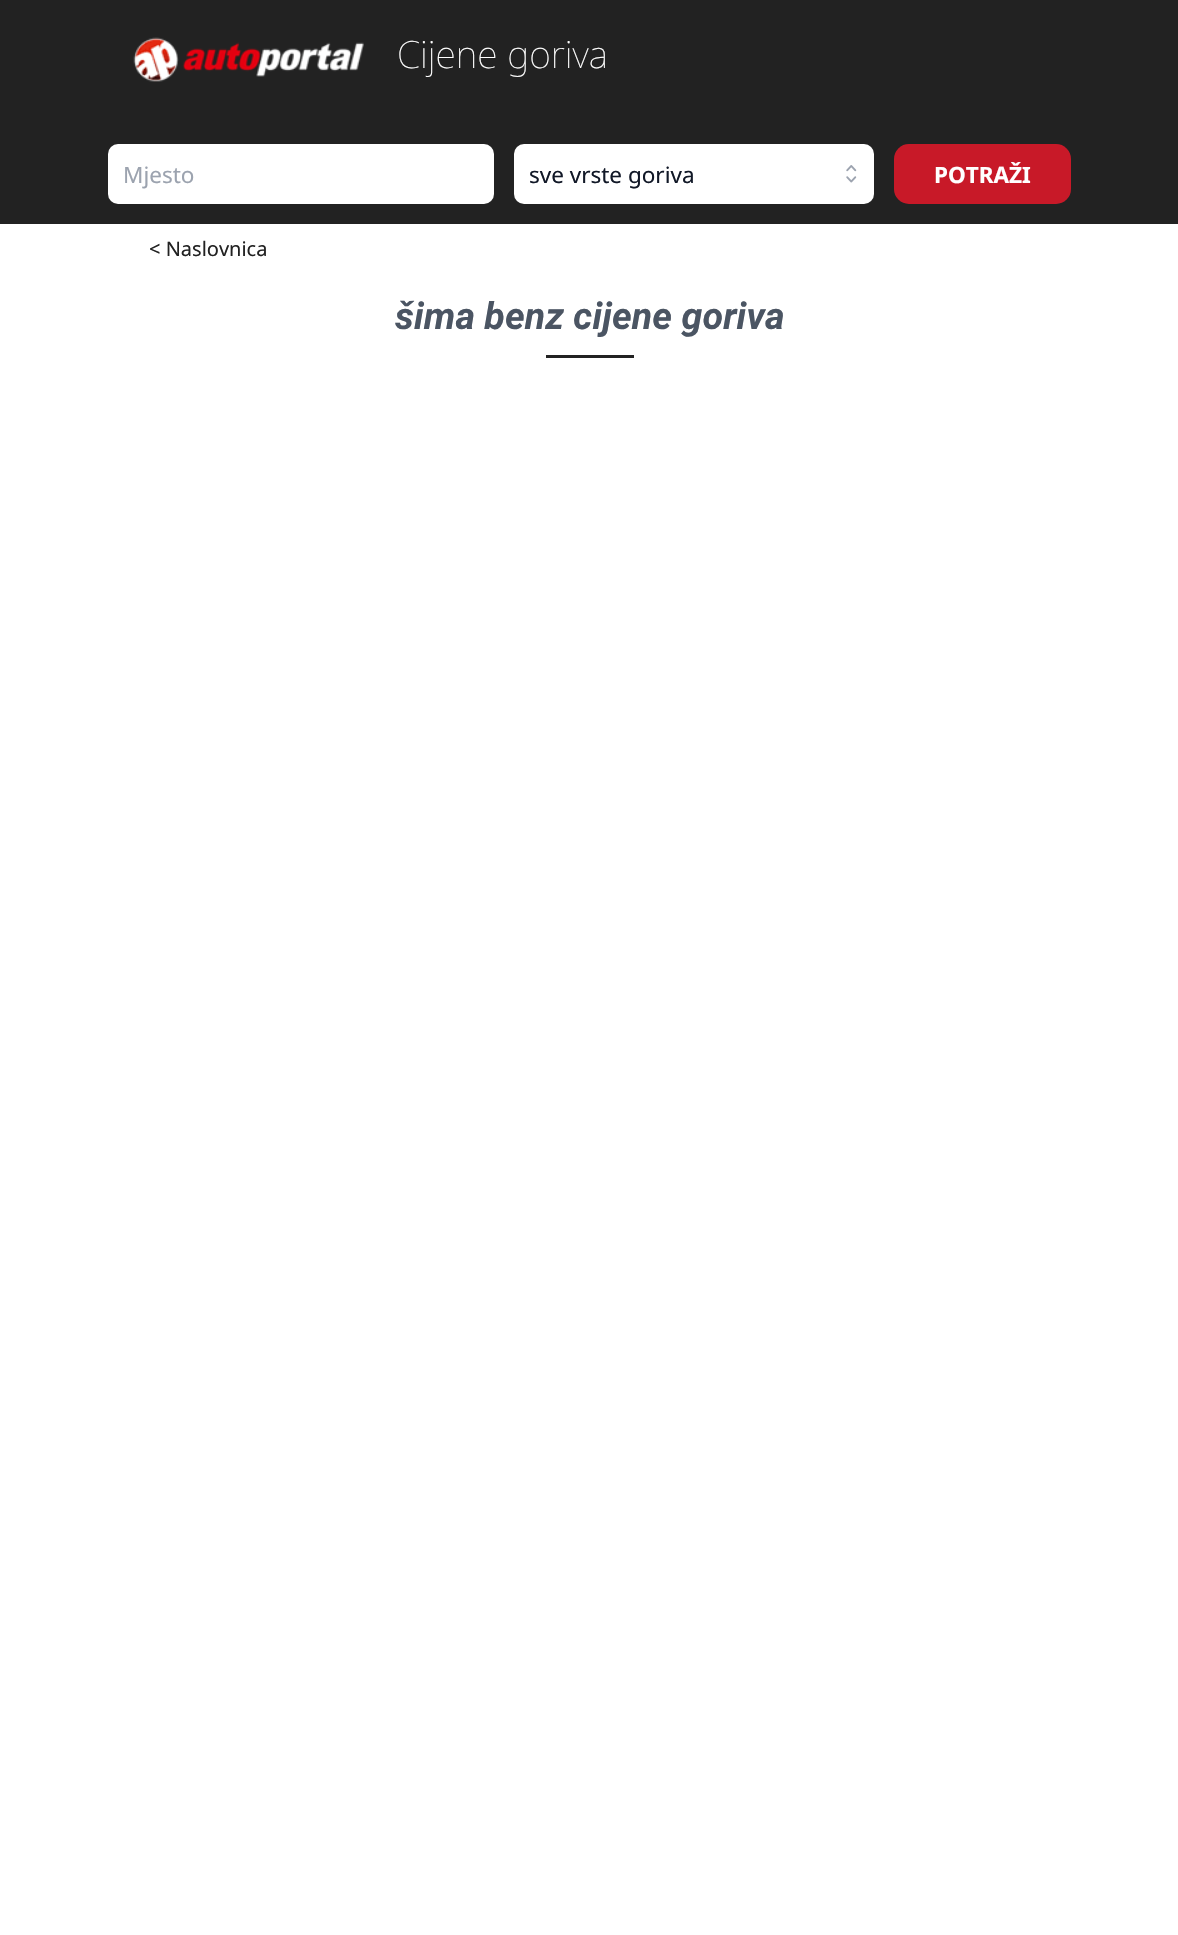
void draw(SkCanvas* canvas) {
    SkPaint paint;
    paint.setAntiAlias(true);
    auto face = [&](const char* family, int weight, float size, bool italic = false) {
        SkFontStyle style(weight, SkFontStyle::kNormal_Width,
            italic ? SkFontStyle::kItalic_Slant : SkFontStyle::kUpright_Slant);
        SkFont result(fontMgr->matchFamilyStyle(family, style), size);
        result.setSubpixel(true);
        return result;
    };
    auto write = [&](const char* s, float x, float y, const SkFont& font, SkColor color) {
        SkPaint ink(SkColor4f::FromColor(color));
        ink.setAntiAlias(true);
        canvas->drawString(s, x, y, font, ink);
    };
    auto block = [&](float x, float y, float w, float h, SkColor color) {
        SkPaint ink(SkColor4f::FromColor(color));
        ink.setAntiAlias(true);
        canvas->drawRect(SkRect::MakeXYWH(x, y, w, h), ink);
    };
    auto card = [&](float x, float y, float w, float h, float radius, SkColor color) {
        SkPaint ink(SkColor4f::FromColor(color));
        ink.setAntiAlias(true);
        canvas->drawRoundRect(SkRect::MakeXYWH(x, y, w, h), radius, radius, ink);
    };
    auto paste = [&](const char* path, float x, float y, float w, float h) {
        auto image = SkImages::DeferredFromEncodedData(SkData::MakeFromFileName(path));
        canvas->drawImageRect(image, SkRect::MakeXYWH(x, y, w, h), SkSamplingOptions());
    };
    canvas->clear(SK_ColorWHITE);
    block(0, 0, 1178, 224, SkColorSetRGB(34, 34, 34));
    paste("pic1.png", 133, 37, 231, 45);
    auto kFont1 = face("Noto Sans", 100, 37.5f);
    write("Cijene goriva", 397, 68, kFont1, SK_ColorWHITE);
    card(108, 144, 386, 60, 10, SK_ColorWHITE);
    auto kFont2 = face("Noto Sans", 400, 22.5f);
    write("Mjesto", 123, 183, kFont2, SkColorSetRGB(156, 163, 175));
    card(514, 144, 360, 60, 10, SK_ColorWHITE);
    write("sve vrste goriva", 529, 183, kFont2, SkColorSetRGB(17, 24, 39));
    paste("pic2.png", 846, 165, 11, 18);
    card(894, 144, 177, 60, 15, SkColorSetRGB(200, 25, 40));
    auto kFont3 = face("Noto Sans", 700, 22.5f);
    write("POTRAŽI", 934, 183, kFont3, SK_ColorWHITE);
    auto kFont4 = face("Noto Sans", 400, 20);
    write("< Naslovnica", 149, 256, kFont4, SkColorSetRGB(34, 34, 34));
    auto kFont5 = face("Roboto", 700, 37.5f, true);
    write("šima benz cijene goriva", 395, 329, kFont5, SkColorSetRGB(75, 85, 99));
    block(546, 355, 88, 3, SkColorSetRGB(34, 34, 34));
}
